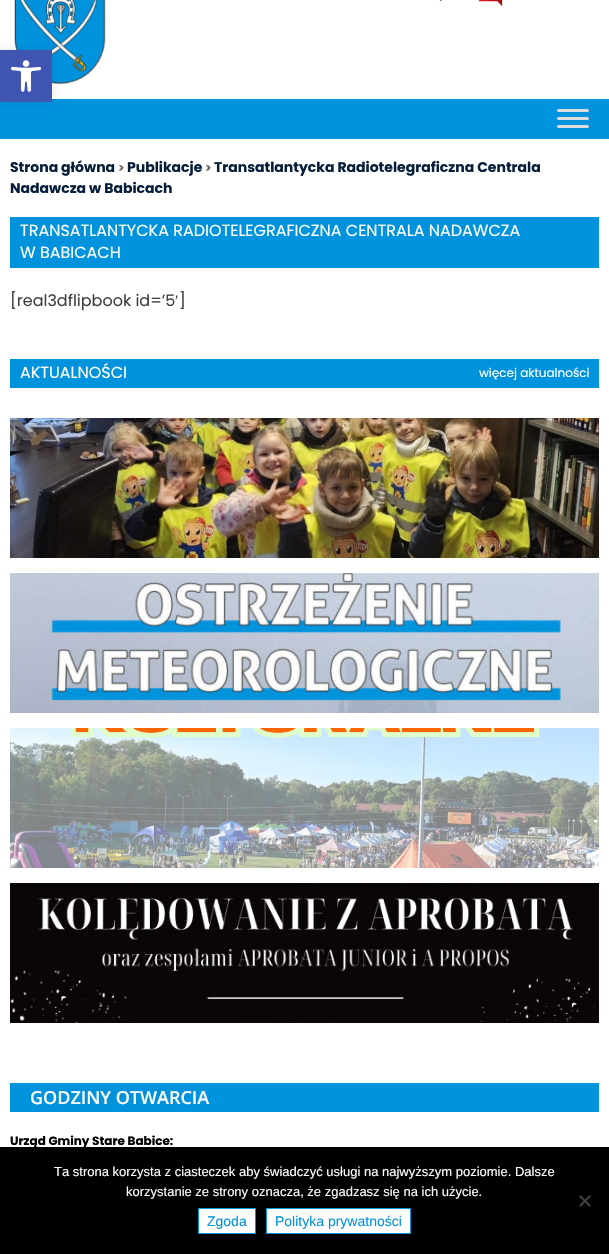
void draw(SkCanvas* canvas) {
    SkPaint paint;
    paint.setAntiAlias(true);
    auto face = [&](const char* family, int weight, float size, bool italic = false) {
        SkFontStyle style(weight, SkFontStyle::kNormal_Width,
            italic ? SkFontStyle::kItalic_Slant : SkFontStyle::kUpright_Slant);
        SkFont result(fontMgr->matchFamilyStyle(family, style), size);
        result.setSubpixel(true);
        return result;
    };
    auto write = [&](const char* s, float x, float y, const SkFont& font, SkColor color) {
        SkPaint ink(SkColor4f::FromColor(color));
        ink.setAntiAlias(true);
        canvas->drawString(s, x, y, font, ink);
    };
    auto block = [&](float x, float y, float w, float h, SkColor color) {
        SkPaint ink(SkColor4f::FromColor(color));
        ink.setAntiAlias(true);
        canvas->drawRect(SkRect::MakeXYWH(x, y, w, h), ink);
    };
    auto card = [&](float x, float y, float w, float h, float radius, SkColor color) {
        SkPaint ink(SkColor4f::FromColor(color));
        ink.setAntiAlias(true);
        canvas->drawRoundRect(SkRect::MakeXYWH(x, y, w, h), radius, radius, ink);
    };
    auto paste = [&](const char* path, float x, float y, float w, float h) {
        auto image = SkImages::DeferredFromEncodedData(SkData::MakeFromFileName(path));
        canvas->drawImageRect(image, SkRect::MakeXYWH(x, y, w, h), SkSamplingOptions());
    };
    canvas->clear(SK_ColorWHITE);
    paste("pic2.png", 14, 0, 92, 85);
    block(0, 99, 609, 40, SkColorSetRGB(0, 147, 221));
    paint.setColor(SkColorSetARGB(26, 0, 0, 0));
    paint.setMaskFilter(SkMaskFilter::MakeBlur(kNormal_SkBlurStyle, 5));
    canvas->drawRect(SkRect::MakeXYWH(0, 50, 52, 52), paint);
    paint.setMaskFilter(nullptr);
    block(0, 50, 52, 52, SkColorSetRGB(64, 84, 178));
    paste("pic1.png", 11, 60, 30, 32);
    paste("pic3.png", 436, 0, 6, 2);
    paste("pic4.png", 479, 0, 24, 6);
    card(557, 109, 32, 3, 1.5f, SkColorSetRGB(221, 221, 221));
    card(557, 117, 32, 3, 1.5f, SkColorSetRGB(221, 221, 221));
    card(557, 125, 32, 3, 1.5f, SkColorSetRGB(221, 221, 221));
    auto kFont1 = face("Poppins", 700, 14);
    write("Strona główna", 10, 172, kFont1, SkColorSetRGB(6, 30, 58));
    auto kFont2 = face("Poppins", 700, 12);
    write(">", 118, 172, kFont2, SkColorSetRGB(105, 105, 105));
    write("Publikacje", 127, 172, kFont1, SkColorSetRGB(6, 30, 58));
    write(">", 205, 172, kFont2, SkColorSetRGB(105, 105, 105));
    write("Transatlantycka Radiotelegraficzna Centrala", 214, 172, kFont1, SkColorSetRGB(6, 30, 58));
    write("Nadawcza w Babicach", 10, 193, kFont1, SkColorSetRGB(6, 30, 58));
    block(10, 217, 589, 51, SkColorSetRGB(0, 147, 221));
    auto kFont3 = face("Poppins", 400, 16);
    write("TRANSATLANTYCKA RADIOTELEGRAFICZNA CENTRALA NADAWCZA", 20, 236, kFont3, SkColorSetRGB(254, 254, 254));
    write("W BABICACH", 20, 258, kFont3, SkColorSetRGB(254, 254, 254));
    write("[real3dflipbook id=’5", 10, 306, kFont3, SkColorSetRGB(64, 64, 64));
    auto kFont4 = face("Liberation Serif", 400, 16);
    write("′", 175, 306, kFont4, SkColorSetRGB(64, 64, 64));
    write("]", 179, 306, kFont3, SkColorSetRGB(64, 64, 64));
    block(10, 359, 589, 29, SkColorSetRGB(0, 147, 221));
    write("AKTUALNOŚCI", 20, 378, kFont3, SkColorSetRGB(254, 254, 254));
    auto kFont5 = face("Poppins", 400, 12);
    write("więcej aktualności", 479, 377, kFont5, SkColorSetRGB(254, 254, 254));
    paste("pic5.png", 10, 418, 589, 140);
    paste("pic6.png", 10, 573, 589, 140);
    paste("pic7.png", 10, 728, 589, 140);
    paste("pic8.png", 10, 883, 589, 140);
    block(10, 1083, 589, 29, SkColorSetRGB(0, 147, 221));
    auto kFont6 = face("Open Sans", 600, 18);
    write("GODZINY OTWARCIA", 30, 1104, kFont6, SkColorSetRGB(254, 254, 254));
    write("Urząd Gminy Stare Babice:", 10, 1145, kFont2, SK_ColorBLACK);
    block(0, 1147, 609, 107, SK_ColorBLACK);
    auto kFont7 = face("Liberation Sans", 400, 13);
    write("Ta strona korzysta z ciasteczek aby świadczyć usługi na najwyższym poziomie. Dalsze", 54, 1176, kFont7, SkColorSetRGB(254, 254, 254));
    write("korzystanie ze strony oznacza, że zgadzasz się na ich użycie.", 126, 1196, kFont7, SkColorSetRGB(254, 254, 254));
    paint.setColor(SkColorSetRGB(64, 64, 64));
    canvas->drawPath(SkPathBuilder().moveTo(589.5f, 1195).lineTo(591, 1196.5f).lineTo(580.5f, 1207).lineTo(579, 1205.5f).close().detach(), paint);
    canvas->drawPath(SkPathBuilder().moveTo(579, 1196.5f).lineTo(580.5f, 1195).lineTo(591, 1205.5f).lineTo(589.5f, 1207).close().detach(), paint);
    paint.setColor(SK_ColorWHITE);
    canvas->drawRect(SkRect::MakeXYWH(198.5f, 1208.5f, 57, 25), paint);
    paint.setStyle(SkPaint::kStroke_Style);
    paint.setStrokeWidth(1);
    paint.setColor(SkColorSetRGB(0, 147, 221));
    canvas->drawRect(SkRect::MakeXYWH(198.5f, 1208.5f, 57, 25), paint);
    auto kFont8 = face("Liberation Sans", 400, 14);
    write("Zgoda", 207, 1226, kFont8, SkColorSetRGB(0, 147, 221));
    paint.setStyle(SkPaint::kFill_Style);
    paint.setColor(SK_ColorWHITE);
    canvas->drawRect(SkRect::MakeXYWH(266.5f, 1208.5f, 144, 25), paint);
    paint.setStyle(SkPaint::kStroke_Style);
    paint.setColor(SkColorSetRGB(0, 147, 221));
    canvas->drawRect(SkRect::MakeXYWH(266.5f, 1208.5f, 144, 25), paint);
    write("Polityka prywatności", 275, 1226, kFont8, SkColorSetRGB(0, 147, 221));
}
